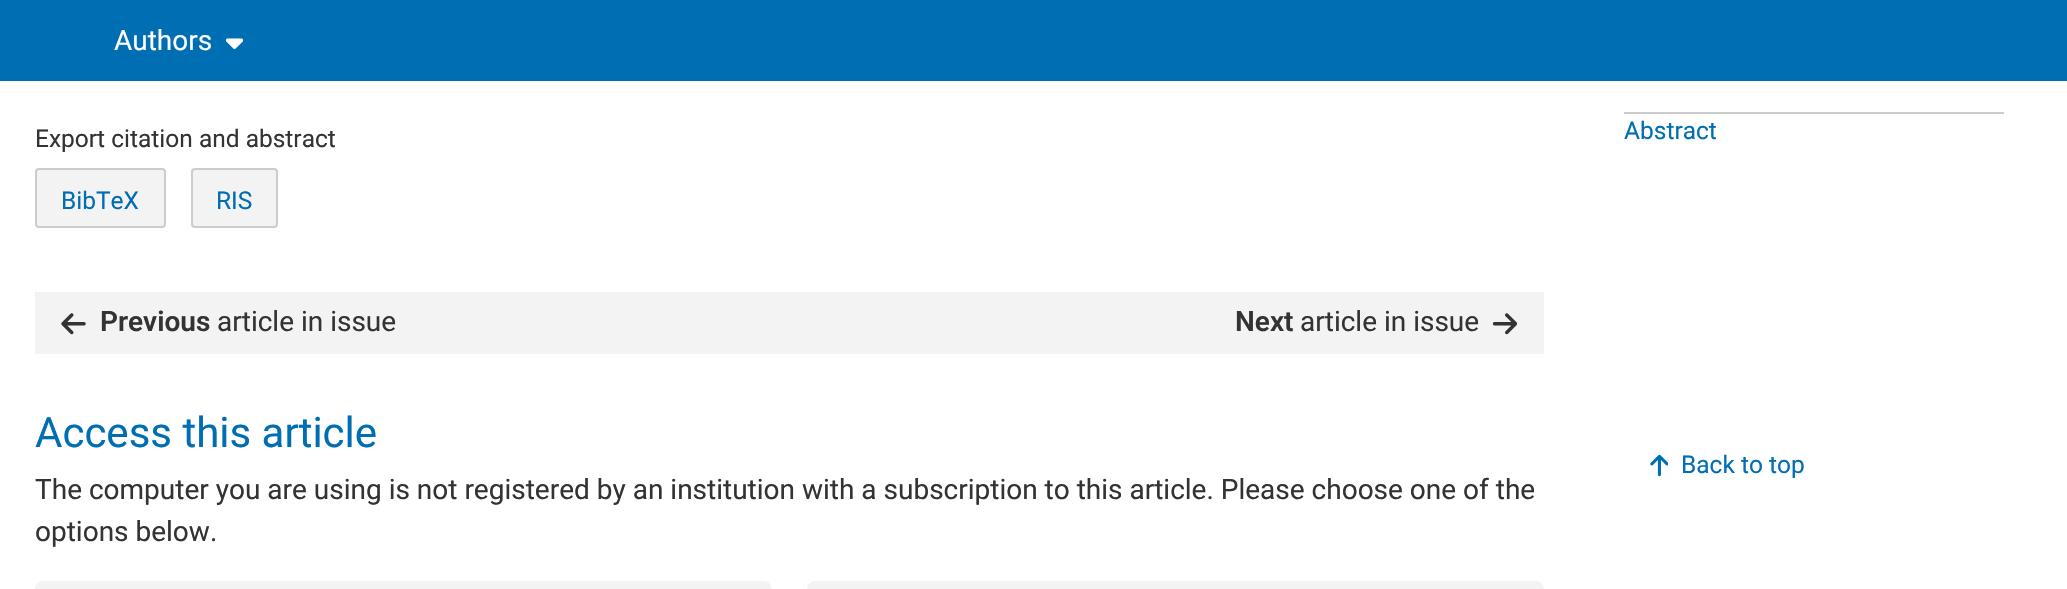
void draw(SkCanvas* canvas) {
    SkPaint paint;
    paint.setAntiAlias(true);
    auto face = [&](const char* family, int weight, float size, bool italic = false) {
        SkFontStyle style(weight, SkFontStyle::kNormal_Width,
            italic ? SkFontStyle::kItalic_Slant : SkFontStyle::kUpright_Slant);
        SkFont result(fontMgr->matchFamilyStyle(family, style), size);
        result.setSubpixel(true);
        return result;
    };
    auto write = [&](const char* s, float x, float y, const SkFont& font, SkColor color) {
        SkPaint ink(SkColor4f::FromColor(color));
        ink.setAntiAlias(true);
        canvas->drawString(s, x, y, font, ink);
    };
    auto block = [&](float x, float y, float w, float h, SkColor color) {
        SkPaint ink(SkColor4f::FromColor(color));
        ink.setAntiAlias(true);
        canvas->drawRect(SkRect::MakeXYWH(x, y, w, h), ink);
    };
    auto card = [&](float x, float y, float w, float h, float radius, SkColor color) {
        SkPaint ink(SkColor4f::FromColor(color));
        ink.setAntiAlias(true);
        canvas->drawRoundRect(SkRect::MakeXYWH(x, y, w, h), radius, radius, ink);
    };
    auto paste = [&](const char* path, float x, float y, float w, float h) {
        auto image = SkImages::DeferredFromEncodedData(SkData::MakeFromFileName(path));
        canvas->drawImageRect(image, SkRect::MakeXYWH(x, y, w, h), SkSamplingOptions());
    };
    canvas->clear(SK_ColorWHITE);
    block(0, 0, 2067, 81, SkColorSetRGB(0, 110, 178));
    auto kFont1 = face("Roboto", 400, 28);
    write("Authors", 114, 50, kFont1, SK_ColorWHITE);
    paste("pic1.png", 226, 38, 17, 11);
    auto kFont2 = face("Roboto", 400, 24.5f);
    write("Export citation and abstract", 35, 147, kFont2, SkColorSetRGB(51, 51, 51));
    paint.setColor(SkColorSetRGB(243, 243, 243));
    canvas->drawRoundRect(SkRect::MakeXYWH(36, 169, 129, 58), 3, 3, paint);
    paint.setStyle(SkPaint::kStroke_Style);
    paint.setStrokeWidth(2);
    paint.setColor(SkColorSetRGB(204, 204, 204));
    canvas->drawRoundRect(SkRect::MakeXYWH(36, 169, 129, 58), 3, 3, paint);
    write("BibTeX", 61, 209, kFont2, SkColorSetRGB(0, 110, 178));
    paint.setStyle(SkPaint::kFill_Style);
    paint.setColor(SkColorSetRGB(243, 243, 243));
    canvas->drawRoundRect(SkRect::MakeXYWH(192, 169, 85, 58), 3, 3, paint);
    paint.setStyle(SkPaint::kStroke_Style);
    paint.setColor(SkColorSetRGB(204, 204, 204));
    canvas->drawRoundRect(SkRect::MakeXYWH(192, 169, 85, 58), 3, 3, paint);
    write("RIS", 216, 209, kFont2, SkColorSetRGB(0, 110, 178));
    block(35, 292, 1509, 62, SkColorSetRGB(243, 243, 243));
    paste("pic2.png", 61, 313, 25, 22);
    auto kFont3 = face("Roboto", 600, 28);
    write("Previous", 100, 331, kFont3, SkColorSetRGB(51, 51, 51));
    write("article in issue", 217, 331, kFont1, SkColorSetRGB(51, 51, 51));
    write("Next", 1235, 331, kFont3, SkColorSetRGB(51, 51, 51));
    write("article in issue", 1300, 331, kFont1, SkColorSetRGB(51, 51, 51));
    paste("pic3.png", 1493, 313, 24, 22);
    auto kFont4 = face("Roboto", 400, 42);
    write("Access this article", 35, 447, kFont4, SkColorSetRGB(0, 110, 178));
    write("The computer you are using is not registered by an institution with a subscription to this article. Please choose one of the", 35, 499, kFont1, SkColorSetRGB(51, 51, 51));
    write("options below.", 35, 541, kFont1, SkColorSetRGB(51, 51, 51));
    card(35, 581, 737, 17, 9, SkColorSetRGB(243, 243, 243));
    card(807, 581, 737, 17, 9, SkColorSetRGB(243, 243, 243));
    block(1624, 112, 380, 2, SkColorSetRGB(204, 204, 204));
    write("Abstract", 1624, 139, kFont2, SkColorSetRGB(0, 110, 178));
    paste("pic4.png", 1650, 454, 18, 23);
    write("Back to top", 1681, 473, kFont2, SkColorSetRGB(0, 110, 178));
}
